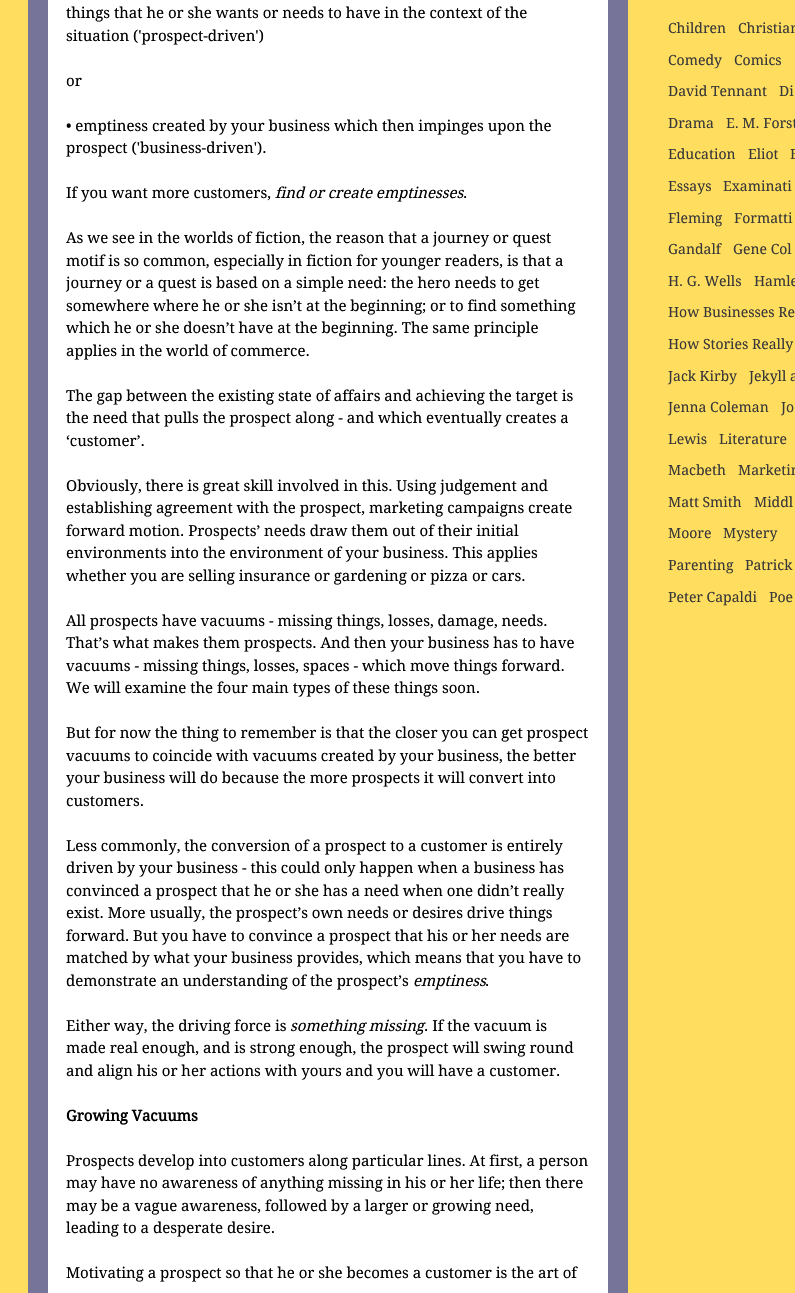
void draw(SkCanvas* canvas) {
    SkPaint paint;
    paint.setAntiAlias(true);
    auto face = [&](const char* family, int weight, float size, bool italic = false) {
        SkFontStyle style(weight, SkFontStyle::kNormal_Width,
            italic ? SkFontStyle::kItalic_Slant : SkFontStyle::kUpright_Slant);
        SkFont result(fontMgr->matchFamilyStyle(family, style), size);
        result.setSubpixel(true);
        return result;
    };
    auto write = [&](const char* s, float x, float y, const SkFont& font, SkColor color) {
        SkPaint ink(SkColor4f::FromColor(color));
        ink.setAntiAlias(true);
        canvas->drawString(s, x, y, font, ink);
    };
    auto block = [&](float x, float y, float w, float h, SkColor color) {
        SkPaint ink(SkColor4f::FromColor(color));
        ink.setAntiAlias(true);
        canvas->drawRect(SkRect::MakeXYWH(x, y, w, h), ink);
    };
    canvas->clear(SkColorSetRGB(255, 222, 95));
    block(28, 0, 600, 1293, SkColorSetRGB(118, 116, 153));
    block(48, 0, 560, 1293, SK_ColorWHITE);
    auto kFont1 = face("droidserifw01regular", 400, 15);
    write("things that he or she wants or needs to have in the context of the", 66, 18, kFont1, SK_ColorBLACK);
    write("situation ('prospect-driven')", 66, 41, kFont1, SK_ColorBLACK);
    write("or", 66, 86, kFont1, SK_ColorBLACK);
    write("• emptiness created by your business which then impinges upon the", 66, 131, kFont1, SK_ColorBLACK);
    write("prospect ('business-driven').", 66, 153, kFont1, SK_ColorBLACK);
    write("If you want more customers,", 66, 198, kFont1, SK_ColorBLACK);
    auto kFont2 = face("droidserifw01regular", 400, 15, true);
    write("find or create emptinesses", 275, 198, kFont2, SK_ColorBLACK);
    write(".", 463, 198, kFont1, SK_ColorBLACK);
    write("As we see in the worlds of fiction, the reason that a journey or quest", 66, 243, kFont1, SK_ColorBLACK);
    write("motif is so common, especially in fiction for younger readers, is that a", 66, 266, kFont1, SK_ColorBLACK);
    write("journey or a quest is based on a simple need: the hero needs to get", 66, 288, kFont1, SK_ColorBLACK);
    write("somewhere where he or she isn’t at the beginning; or to find something", 66, 311, kFont1, SK_ColorBLACK);
    write("which he or she doesn’t have at the beginning. The same principle", 66, 333, kFont1, SK_ColorBLACK);
    write("applies in the world of commerce.", 66, 356, kFont1, SK_ColorBLACK);
    write("The gap between the existing state of affairs and achieving the target is", 66, 401, kFont1, SK_ColorBLACK);
    write("the need that pulls the prospect along - and which eventually creates a", 66, 423, kFont1, SK_ColorBLACK);
    write("‘customer’.", 66, 446, kFont1, SK_ColorBLACK);
    write("Obviously, there is great skill involved in this. Using judgement and", 66, 491, kFont1, SK_ColorBLACK);
    write("establishing agreement with the prospect, marketing campaigns create", 66, 513, kFont1, SK_ColorBLACK);
    write("forward motion. Prospects’ needs draw them out of their initial", 66, 536, kFont1, SK_ColorBLACK);
    write("environments into the environment of your business. This applies", 66, 558, kFont1, SK_ColorBLACK);
    write("whether you are selling insurance or gardening or pizza or cars.", 66, 581, kFont1, SK_ColorBLACK);
    write("All prospects have vacuums - missing things, losses, damage, needs.", 66, 626, kFont1, SK_ColorBLACK);
    write("That’s what makes them prospects. And then your business has to have", 66, 648, kFont1, SK_ColorBLACK);
    write("vacuums - missing things, losses, spaces - which move things forward.", 66, 671, kFont1, SK_ColorBLACK);
    write("We will examine the four main types of these things soon.", 66, 693, kFont1, SK_ColorBLACK);
    write("But for now the thing to remember is that the closer you can get prospect", 66, 738, kFont1, SK_ColorBLACK);
    write("vacuums to coincide with vacuums created by your business, the better", 66, 761, kFont1, SK_ColorBLACK);
    write("your business will do because the more prospects it will convert into", 66, 783, kFont1, SK_ColorBLACK);
    write("customers.", 66, 806, kFont1, SK_ColorBLACK);
    write("Less commonly, the conversion of a prospect to a customer is entirely", 66, 851, kFont1, SK_ColorBLACK);
    write("driven by your business - this could only happen when a business has", 66, 873, kFont1, SK_ColorBLACK);
    write("convinced a prospect that he or she has a need when one didn’t really", 66, 896, kFont1, SK_ColorBLACK);
    write("exist. More usually, the prospect’s own needs or desires drive things", 66, 918, kFont1, SK_ColorBLACK);
    write("forward. But you have to convince a prospect that his or her needs are", 66, 941, kFont1, SK_ColorBLACK);
    write("matched by what your business provides, which means that you have to", 66, 963, kFont1, SK_ColorBLACK);
    write("demonstrate an understanding of the prospect’s", 66, 986, kFont1, SK_ColorBLACK);
    write("emptiness", 413, 986, kFont2, SK_ColorBLACK);
    write(".", 485, 986, kFont1, SK_ColorBLACK);
    write("Either way, the driving force is", 66, 1031, kFont1, SK_ColorBLACK);
    write("something missing", 290, 1031, kFont2, SK_ColorBLACK);
    write(". If the vacuum is", 424, 1031, kFont1, SK_ColorBLACK);
    write("made real enough, and is strong enough, the prospect will swing round", 66, 1053, kFont1, SK_ColorBLACK);
    write("and align his or her actions with yours and you will have a customer.", 66, 1076, kFont1, SK_ColorBLACK);
    auto kFont3 = face("droidserifw01regular", 700, 15);
    write("Growing Vacuums", 66, 1121, kFont3, SK_ColorBLACK);
    write("Prospects develop into customers along particular lines. At first, a person", 66, 1166, kFont1, SK_ColorBLACK);
    write("may have no awareness of anything missing in his or her life; then there", 66, 1188, kFont1, SK_ColorBLACK);
    write("may be a vague awareness, followed by a larger or growing need,", 66, 1211, kFont1, SK_ColorBLACK);
    write("leading to a desperate desire.", 66, 1233, kFont1, SK_ColorBLACK);
    write("Motivating a prospect so that he or she becomes a customer is the art of", 66, 1278, kFont1, SK_ColorBLACK);
    auto kFont4 = face("droidserifw01regular", 400, 14);
    write("Children", 668, 33, kFont4, SkColorSetRGB(57, 56, 56));
    write("Christian", 738, 33, kFont4, SkColorSetRGB(57, 56, 56));
    write("Comedy", 668, 65, kFont4, SkColorSetRGB(57, 56, 56));
    write("Comics", 734, 65, kFont4, SkColorSetRGB(57, 56, 56));
    write("David Tennant", 668, 96, kFont4, SkColorSetRGB(57, 56, 56));
    write("Di", 779, 96, kFont4, SkColorSetRGB(57, 56, 56));
    write("Drama", 668, 128, kFont4, SkColorSetRGB(57, 56, 56));
    write("E. M. Forst", 726, 128, kFont4, SkColorSetRGB(57, 56, 56));
    write("Education", 668, 159, kFont4, SkColorSetRGB(57, 56, 56));
    write("Eliot", 748, 159, kFont4, SkColorSetRGB(57, 56, 56));
    write("E", 790, 159, kFont4, SkColorSetRGB(57, 56, 56));
    write("Essays", 668, 191, kFont4, SkColorSetRGB(57, 56, 56));
    write("Examinati", 723, 191, kFont4, SkColorSetRGB(57, 56, 56));
    write("Fleming", 668, 223, kFont4, SkColorSetRGB(57, 56, 56));
    write("Formatti", 734, 223, kFont4, SkColorSetRGB(57, 56, 56));
    write("Gandalf", 668, 254, kFont4, SkColorSetRGB(57, 56, 56));
    write("Gene Col", 733, 254, kFont4, SkColorSetRGB(57, 56, 56));
    write("H. G. Wells", 668, 286, kFont4, SkColorSetRGB(57, 56, 56));
    write("Hamle", 754, 286, kFont4, SkColorSetRGB(57, 56, 56));
    write("How Businesses Re", 668, 317, kFont4, SkColorSetRGB(57, 56, 56));
    write("How Stories Really", 668, 349, kFont4, SkColorSetRGB(57, 56, 56));
    write("Jack Kirby", 668, 381, kFont4, SkColorSetRGB(57, 56, 56));
    write("Jekyll a", 749, 381, kFont4, SkColorSetRGB(57, 56, 56));
    write("Jenna Coleman", 668, 412, kFont4, SkColorSetRGB(57, 56, 56));
    write("Jo", 781, 412, kFont4, SkColorSetRGB(57, 56, 56));
    write("Lewis", 668, 444, kFont4, SkColorSetRGB(57, 56, 56));
    write("Literature", 719, 444, kFont4, SkColorSetRGB(57, 56, 56));
    write("Macbeth", 668, 475, kFont4, SkColorSetRGB(57, 56, 56));
    write("Marketin", 738, 475, kFont4, SkColorSetRGB(57, 56, 56));
    write("Matt Smith", 668, 507, kFont4, SkColorSetRGB(57, 56, 56));
    write("Middl", 754, 507, kFont4, SkColorSetRGB(57, 56, 56));
    write("Moore", 668, 538, kFont4, SkColorSetRGB(57, 56, 56));
    write("Mystery", 723, 538, kFont4, SkColorSetRGB(57, 56, 56));
    write("Parenting", 668, 570, kFont4, SkColorSetRGB(57, 56, 56));
    write("Patrick", 745, 570, kFont4, SkColorSetRGB(57, 56, 56));
    write("Peter Capaldi", 668, 602, kFont4, SkColorSetRGB(57, 56, 56));
    write("Poe", 769, 602, kFont4, SkColorSetRGB(57, 56, 56));
}
